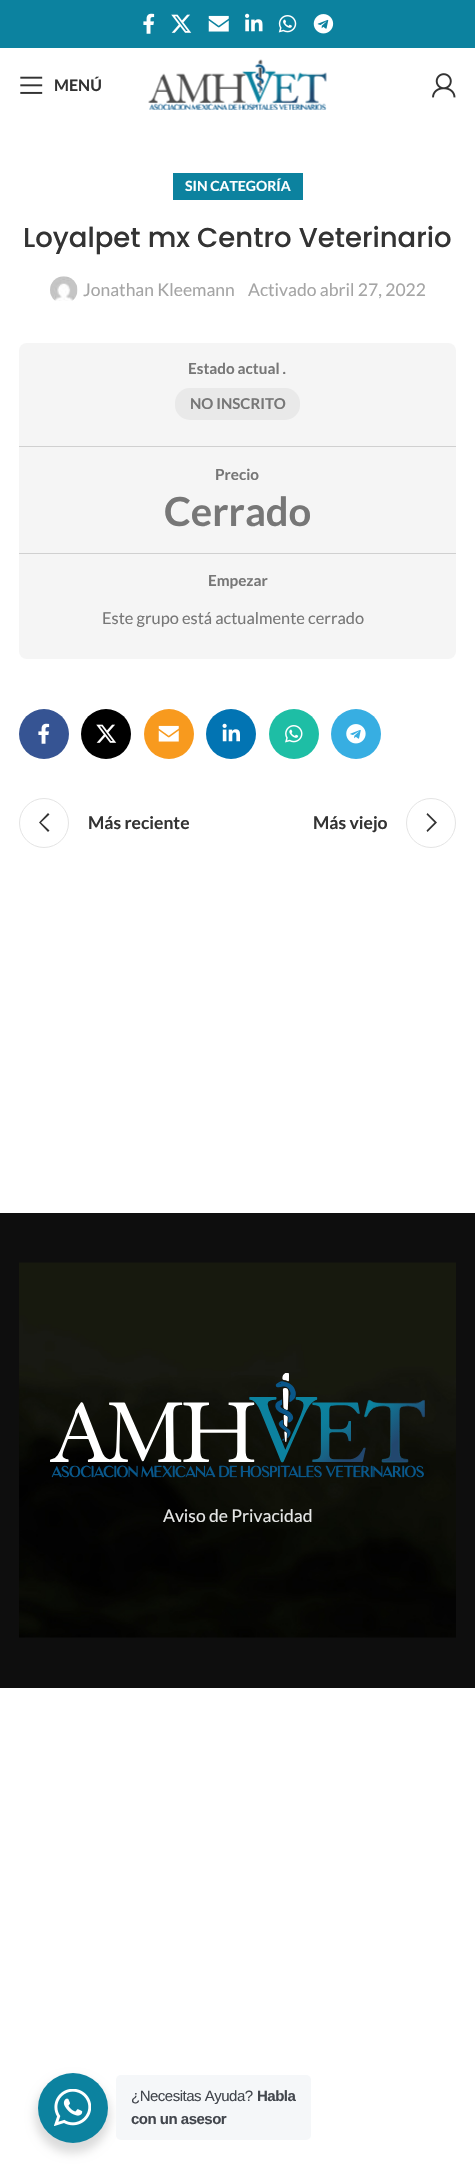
void draw(SkCanvas* canvas) {
    SkPaint paint;
    paint.setAntiAlias(true);
    auto face = [&](const char* family, int weight, float size, bool italic = false) {
        SkFontStyle style(weight, SkFontStyle::kNormal_Width,
            italic ? SkFontStyle::kItalic_Slant : SkFontStyle::kUpright_Slant);
        SkFont result(fontMgr->matchFamilyStyle(family, style), size);
        result.setSubpixel(true);
        return result;
    };
    auto write = [&](const char* s, float x, float y, const SkFont& font, SkColor color) {
        SkPaint ink(SkColor4f::FromColor(color));
        ink.setAntiAlias(true);
        canvas->drawString(s, x, y, font, ink);
    };
    auto writeSpaced = [&](const char* s, float x, float y, const SkFont& font, const SkPaint& ink, float letter, float word) {
        std::vector<SkGlyphID> glyphs(font.countText(s, strlen(s), SkTextEncoding::kUTF8));
        std::vector<float> xs(glyphs.size());
        font.textToGlyphs(s, strlen(s), SkTextEncoding::kUTF8, glyphs);
        font.getXPos(glyphs, xs, x);
        float extra = 0;
        for (size_t i = 0; i < glyphs.size(); i++) {
            xs[i] += extra;
            extra += letter + word * (glyphs[i] == font.unicharToGlyph(' '));
        }
        canvas->drawTextBlob(SkTextBlob::MakeFromPosHGlyphs(glyphs, xs, y, font), 0, 0, ink);
    };
    auto block = [&](float x, float y, float w, float h, SkColor color) {
        SkPaint ink(SkColor4f::FromColor(color));
        ink.setAntiAlias(true);
        canvas->drawRect(SkRect::MakeXYWH(x, y, w, h), ink);
    };
    auto card = [&](float x, float y, float w, float h, float radius, SkColor color) {
        SkPaint ink(SkColor4f::FromColor(color));
        ink.setAntiAlias(true);
        canvas->drawRoundRect(SkRect::MakeXYWH(x, y, w, h), radius, radius, ink);
    };
    auto paste = [&](const char* path, float x, float y, float w, float h) {
        auto image = SkImages::DeferredFromEncodedData(SkData::MakeFromFileName(path));
        canvas->drawImageRect(image, SkRect::MakeXYWH(x, y, w, h), SkSamplingOptions());
    };
    canvas->clear(SK_ColorWHITE);
    block(0, 0, 475, 48, SkColorSetRGB(12, 130, 159));
    paste("pic1.png", 143, 13, 12, 21);
    paste("pic2.png", 171, 14, 21, 19);
    paste("pic3.png", 208, 15, 21, 17);
    paste("pic4.png", 245, 13, 18, 19);
    paste("pic5.png", 278, 15, 19, 18);
    paste("pic6.png", 313, 14, 21, 20);
    paste("pic7.png", 20, 76, 23, 18);
    auto kFont1 = face("Lato", 700, 16);
    write("MENÚ", 54, 91, kFont1, SkColorSetRGB(51, 51, 51));
    paste("pic8.png", 148, 59, 179, 51);
    paste("pic9.png", 432, 73, 24, 25);
    block(173, 173, 130, 27, SkColorSetRGB(12, 130, 159));
    auto kFont2 = face("Lato", 700, 14);
    write("SIN CATEGORÍA", 185, 191, kFont2, SK_ColorWHITE);
    auto kFont3 = face("Poppins", 500, 27.5f);
    write("Loyalpet mx Centro Veterinario", 23, 247, kFont3, SkColorSetRGB(51, 51, 51));
    paste("pic10.png", 50, 276, 28, 25);
    auto kFont4 = face("Lato", 400, 17.5f);
    write("Jonathan Kleemann", 83, 296, kFont4, SkColorSetRGB(165, 165, 165));
    write("Activado abril 27, 2022", 248, 296, kFont4, SkColorSetRGB(165, 165, 165));
    card(19, 343, 437, 316, 8, SkColorSetRGB(245, 245, 245));
    block(19, 446, 437, 1, SkColorSetRGB(208, 208, 208));
    auto kFont5 = face("Lato", 700, 15.25f);
    write("Estado actual .", 188, 374, kFont5, SkColorSetRGB(119, 119, 119));
    card(175, 388, 125, 32, 15, SkColorSetRGB(233, 233, 233));
    auto kFont6 = face("Lato", 700, 15);
    write("NO INSCRITO", 190, 409, kFont6, SkColorSetRGB(119, 119, 119));
    block(19, 553, 437, 1, SkColorSetRGB(208, 208, 208));
    write("Precio", 215, 480, kFont5, SkColorSetRGB(119, 119, 119));
    auto kFont7 = face("Lato", 700, 40);
    write("Cerrado", 164, 526, kFont7, SkColorSetRGB(119, 119, 119));
    write("Empezar", 208, 586, kFont5, SkColorSetRGB(119, 119, 119));
    auto kFont8 = face("Lato", 400, 16.4f);
    write("Este grupo está actualmente cerrado", 102, 624, kFont8, SkColorSetRGB(119, 119, 119));
    paint.setColor(SkColorSetRGB(54, 84, 147));
    canvas->drawCircle(44, 734, 25, paint);
    paste("pic11.png", 38, 723, 12, 21);
    paint.setColor(SK_ColorBLACK);
    canvas->drawCircle(106, 734, 25, paint);
    paste("pic12.png", 96, 724, 21, 19);
    paint.setColor(SkColorSetRGB(248, 154, 30));
    canvas->drawCircle(169, 734, 25, paint);
    paste("pic13.png", 158, 725, 21, 17);
    paint.setColor(SkColorSetRGB(2, 116, 179));
    canvas->drawCircle(231, 734, 25, paint);
    paste("pic14.png", 222, 723, 18, 19);
    paint.setColor(SkColorSetRGB(30, 190, 165));
    canvas->drawCircle(294, 734, 25, paint);
    paste("pic15.png", 285, 725, 18, 18);
    paint.setColor(SkColorSetRGB(55, 174, 226));
    canvas->drawCircle(356, 734, 25, paint);
    paste("pic16.png", 346, 724, 20, 20);
    paint.setStyle(SkPaint::kStroke_Style);
    paint.setStrokeWidth(1);
    paint.setColor(SkColorSetRGB(228, 228, 228));
    canvas->drawCircle(44, 823, 24.5f, paint);
    paint.setStyle(SkPaint::kFill_Style);
    paint.setColor(SkColorSetRGB(51, 51, 51));
    canvas->drawPath(SkPathBuilder().moveTo(49.5f, 814.5f).lineTo(48, 813).lineTo(39, 822.5f).lineTo(48, 832).lineTo(49.5f, 830.5f).lineTo(41, 822.5f).close().detach(), paint);
    auto kFont9 = face("Lato", 700, 17.5f);
    write("Más reciente", 88, 829, kFont9, SkColorSetRGB(51, 51, 51));
    write("Más viejo", 313, 829, kFont9, SkColorSetRGB(51, 51, 51));
    paint.setStyle(SkPaint::kStroke_Style);
    paint.setColor(SkColorSetRGB(228, 228, 228));
    canvas->drawCircle(431, 823, 24.5f, paint);
    paint.setStyle(SkPaint::kFill_Style);
    paint.setColor(SkColorSetRGB(51, 51, 51));
    canvas->drawPath(SkPathBuilder().moveTo(426.5f, 814.5f).lineTo(434.5f, 822.5f).lineTo(426.5f, 830.5f).lineTo(427.5f, 832).lineTo(437, 822.5f).lineTo(427.5f, 813).close().detach(), paint);
    block(0, 1213, 475, 475, SkColorSetRGB(14, 14, 14));
    paste("pic17.png", 19, 1262, 437, 376);
    paste("pic18.png", 50, 1373, 375, 105);
    write("Aviso de Privacidad", 163, 1522, kFont4, SkColorSetRGB(230, 231, 230));
    paint.setColor(SkColorSetARGB(36, 0, 0, 0));
    paint.setMaskFilter(SkMaskFilter::MakeBlur(kNormal_SkBlurStyle, 5));
    canvas->drawRoundRect(SkRect::MakeXYWH(35, 2078, 75, 75), 37.5f, 37.5f, paint);
    paint.setMaskFilter(nullptr);
    paint.setColor(SkColorSetRGB(12, 130, 159));
    canvas->drawCircle(73, 2108, 35, paint);
    paste("pic19.png", 54, 2089, 37, 37);
    card(116, 2075, 195, 65, 5, SkColorSetRGB(245, 247, 249));
    auto kFont10 = face("Liberation Sans", 400, 15);
    paint.setColor(SkColorSetRGB(67, 71, 78));
    writeSpaced("¿Necesitas Ayuda?", 131, 2101, kFont10, paint, -0.5f, 0);
    auto kFont11 = face("Liberation Sans", 700, 15);
    writeSpaced("Habla", 257, 2101, kFont11, paint, -0.5f, 0);
    writeSpaced("con un asesor", 131, 2124, kFont11, paint, -0.5f, 0);
}
